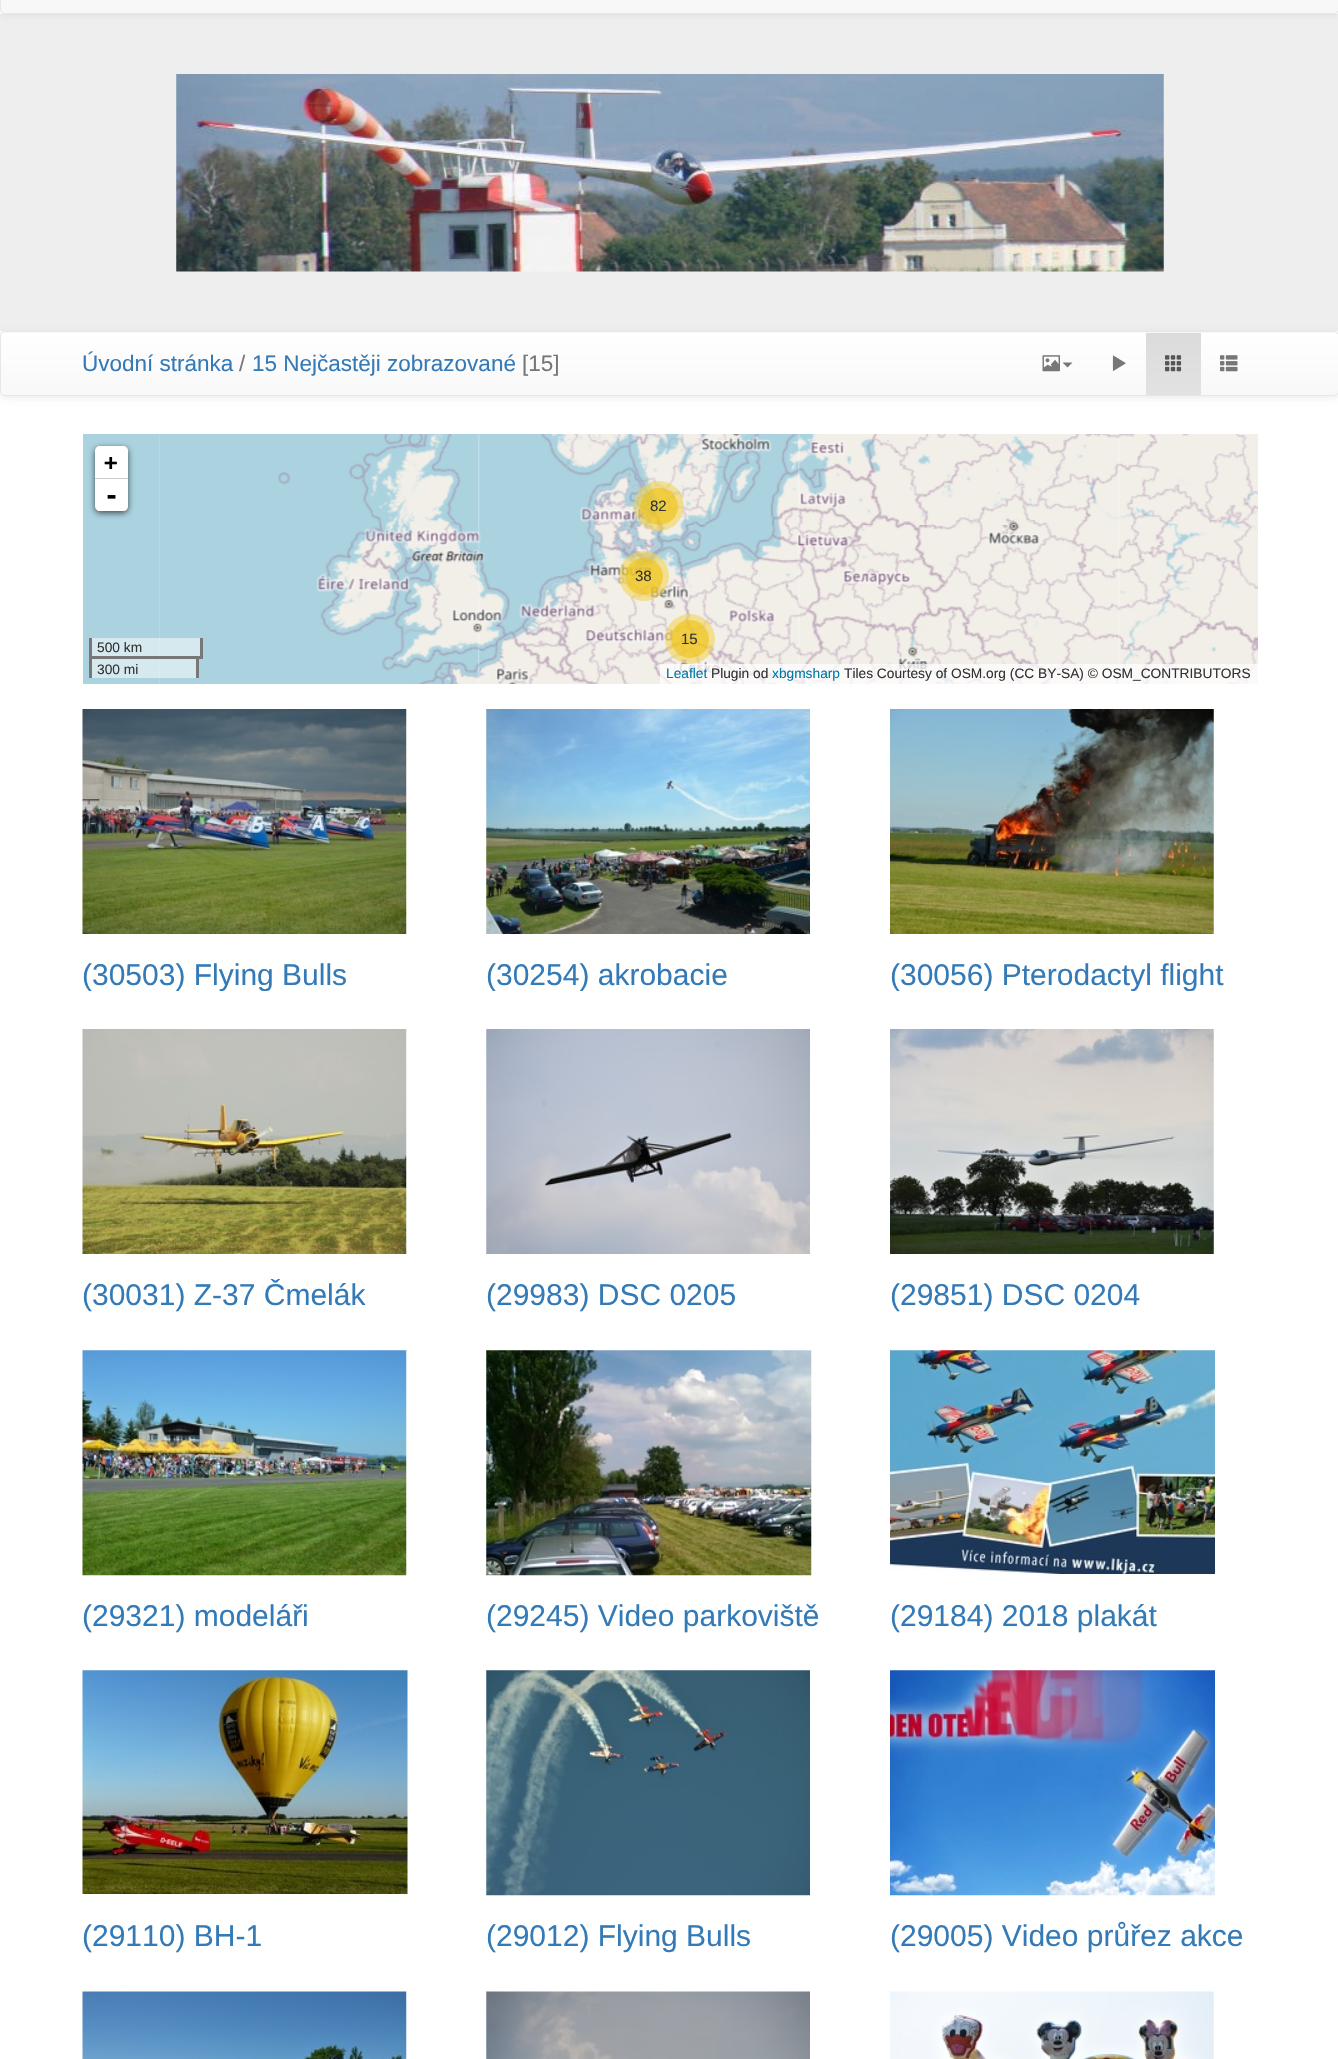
void draw(SkCanvas* canvas) {
    SkPaint paint;
    paint.setAntiAlias(true);
    auto face = [&](const char* family, int weight, float size, bool italic = false) {
        SkFontStyle style(weight, SkFontStyle::kNormal_Width,
            italic ? SkFontStyle::kItalic_Slant : SkFontStyle::kUpright_Slant);
        SkFont result(fontMgr->matchFamilyStyle(family, style), size);
        result.setSubpixel(true);
        return result;
    };
    auto write = [&](const char* s, float x, float y, const SkFont& font, SkColor color) {
        SkPaint ink(SkColor4f::FromColor(color));
        ink.setAntiAlias(true);
        canvas->drawString(s, x, y, font, ink);
    };
    auto block = [&](float x, float y, float w, float h, SkColor color) {
        SkPaint ink(SkColor4f::FromColor(color));
        ink.setAntiAlias(true);
        canvas->drawRect(SkRect::MakeXYWH(x, y, w, h), ink);
    };
    auto card = [&](float x, float y, float w, float h, float radius, SkColor color) {
        SkPaint ink(SkColor4f::FromColor(color));
        ink.setAntiAlias(true);
        canvas->drawRoundRect(SkRect::MakeXYWH(x, y, w, h), radius, radius, ink);
    };
    auto paste = [&](const char* path, float x, float y, float w, float h) {
        auto image = SkImages::DeferredFromEncodedData(SkData::MakeFromFileName(path));
        canvas->drawImageRect(image, SkRect::MakeXYWH(x, y, w, h), SkSamplingOptions());
    };
    canvas->clear(SK_ColorWHITE);
    block(0, 14, 1338, 317, SkColorSetRGB(238, 238, 238));
    paint.setColor(SkColorSetARGB(18, 0, 0, 0));
    paint.setMaskFilter(SkMaskFilter::MakeBlur(kNormal_SkBlurStyle, 3));
    canvas->drawRoundRect(SkRect::MakeXYWH(0, -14, 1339, 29), 5, 5, paint);
    paint.setMaskFilter(nullptr);
    paint.setColor(SkColorSetRGB(248, 248, 248));
    canvas->drawRoundRect(SkRect::MakeXYWH(0.5f, -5.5f, 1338, 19), 4.5f, 4.5f, paint);
    paint.setStyle(SkPaint::kStroke_Style);
    paint.setStrokeWidth(1);
    paint.setColor(SkColorSetRGB(231, 231, 231));
    canvas->drawRoundRect(SkRect::MakeXYWH(0.5f, -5.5f, 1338, 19), 4.5f, 4.5f, paint);
    paste("pic1.png", 176, 74, 988, 198);
    paint.setStyle(SkPaint::kFill_Style);
    paint.setColor(SkColorSetARGB(18, 0, 0, 0));
    paint.setMaskFilter(SkMaskFilter::MakeBlur(kNormal_SkBlurStyle, 3));
    canvas->drawRoundRect(SkRect::MakeXYWH(0, 333, 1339, 65), 5, 5, paint);
    paint.setMaskFilter(nullptr);
    card(0, 331, 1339, 65, 5, SkColorSetRGB(248, 248, 248));
    canvas->save();
    canvas->clipPath(SkPathBuilder().moveTo(5, 331).lineTo(1334, 331).cubicTo(1337, 331, 1339, 333, 1339, 336).lineTo(1339, 391).cubicTo(1339, 394, 1337, 396, 1334, 396).lineTo(5, 396).cubicTo(2, 396, 0, 394, 0, 391).lineTo(0, 336).cubicTo(0, 333, 2, 331, 5, 331).close().detach(), true);
    {
        const SkColor colors[] = {SK_ColorWHITE, SkColorSetRGB(248, 248, 248)};
        const float stops[] = {0, 1};
        const SkPoint ends[] = {{669, 332}, {669, 395}};
        paint.setShader(SkGradientShader::MakeLinear(ends, colors, stops, 2, SkTileMode::kClamp));
        paint.setAlpha(255);
    }
    canvas->drawRect(SkRect::MakeXYWH(0, 333, 1338, 62), paint);
    canvas->restore();
    paint.setStyle(SkPaint::kStroke_Style);
    paint.setShader(nullptr);
    paint.setColor(SkColorSetRGB(231, 231, 231));
    canvas->drawRoundRect(SkRect::MakeXYWH(0.5f, 331.5f, 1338, 64), 4.5f, 4.5f, paint);
    auto kFont1 = face("Liberation Sans", 400, 22.5f);
    write("Úvodní stránka", 82, 371, kFont1, SkColorSetRGB(51, 122, 183));
    write("/", 239, 371, kFont1, SkColorSetRGB(119, 119, 119));
    write("15 Nejčastěji zobrazované", 252, 371, kFont1, SkColorSetRGB(51, 122, 183));
    write("[15]", 522, 371, kFont1, SkColorSetRGB(119, 119, 119));
    paste("pic2.png", 1042, 355, 18, 17);
    paint.setStyle(SkPaint::kFill_Style);
    paint.setColor(SkColorSetRGB(119, 119, 119));
    canvas->drawPath(SkPathBuilder().moveTo(1062.5f, 362.5f).lineTo(1072.5f, 362.5f).lineTo(1067.5f, 367.5f).close().detach(), paint);
    paste("pic3.png", 1112, 355, 14, 16);
    {
        const SkColor colors[] = {SkColorSetRGB(219, 219, 219), SkColorSetRGB(226, 226, 226)};
        const float stops[] = {0, 1};
        const SkPoint ends[] = {{1174, 333}, {1174, 395}};
        paint.setShader(SkGradientShader::MakeLinear(ends, colors, stops, 2, SkTileMode::kClamp));
        paint.setAlpha(255);
    }
    canvas->drawRect(SkRect::MakeXYWH(1146, 333, 55, 62), paint);
    paste("pic4.png", 1165, 355, 17, 17);
    paste("pic5.png", 1220, 355, 18, 17);
    block(83, 434, 76, 250, SkColorSetRGB(170, 211, 223));
    paint.setShader(nullptr);
    paint.setColor(SkColorSetARGB(166, 0, 0, 0));
    paint.setMaskFilter(SkMaskFilter::MakeBlur(kNormal_SkBlurStyle, 3));
    canvas->drawRoundRect(SkRect::MakeXYWH(95, 448, 33, 65), 5, 5, paint);
    paint.setMaskFilter(nullptr);
    paint.setColor(SK_ColorWHITE);
    canvas->drawPath(SkPathBuilder().moveTo(100, 446).lineTo(123, 446).cubicTo(126, 446, 128, 448, 128, 451).lineTo(128, 479).lineTo(95, 479).lineTo(95, 451).cubicTo(95, 448, 97, 446, 100, 446).close().detach(), paint);
    block(95, 478, 33, 1, SkColorSetRGB(204, 204, 204));
    auto kFont2 = face("DejaVu Sans Mono", 700, 22.5f);
    write("+", 104, 470, kFont2, SK_ColorBLACK);
    canvas->drawPath(SkPathBuilder().moveTo(95, 479).lineTo(128, 479).lineTo(128, 506).cubicTo(128, 509, 126, 511, 123, 511).lineTo(100, 511).cubicTo(97, 511, 95, 509, 95, 506).close().detach(), paint);
    auto kFont3 = face("DejaVu Sans Mono", 700, 25);
    write("-", 104, 504, kFont3, SK_ColorBLACK);
    paste("pic11.png", 478, 525, 322, 159);
    paste("pic10.png", 159, 525, 321, 159);
    block(92, 638, 108, 18, SkColorSetARGB(128, 255, 255, 255));
    block(200, 638, 3, 21, SkColorSetRGB(119, 119, 119));
    block(199, 656, 4, 3, SkColorSetRGB(119, 119, 119));
    block(89, 638, 3, 21, SkColorSetRGB(119, 119, 119));
    auto kFont4 = face("Liberation Sans", 400, 13.75f);
    write("500 km", 97, 652, kFont4, SkColorSetRGB(51, 51, 51));
    block(92, 659, 104, 19, SkColorSetARGB(128, 255, 255, 255));
    block(89, 656, 110, 3, SkColorSetRGB(119, 119, 119));
    block(196, 656, 3, 22, SkColorSetRGB(119, 119, 119));
    block(89, 656, 3, 22, SkColorSetRGB(119, 119, 119));
    write("300 mi", 97, 674, kFont4, SkColorSetRGB(51, 51, 51));
    paste("pic12.png", 798, 525, 322, 159);
    paste("pic13.png", 1118, 525, 140, 159);
    block(660, 664, 598, 20, SkColorSetARGB(179, 255, 255, 255));
    write("Leaflet", 666, 678, kFont4, SkColorSetRGB(0, 120, 168));
    write("Plugin od", 711, 678, kFont4, SkColorSetRGB(51, 51, 51));
    write("xbgmsharp", 772, 678, kFont4, SkColorSetRGB(0, 120, 168));
    write("Tiles Courtesy of OSM.org (CC BY-SA) © OSM_CONTRIBUTORS", 844, 678, kFont4, SkColorSetRGB(51, 51, 51));
    paste("pic7.png", 478, 434, 322, 91);
    paste("pic6.png", 159, 434, 320, 91);
    paste("pic8.png", 798, 434, 322, 91);
    paste("pic9.png", 1118, 434, 140, 91);
    paint.setColor(SkColorSetARGB(153, 241, 211, 87));
    canvas->drawCircle(659, 506, 25, paint);
    card(640, 488, 38, 37, 18.5f, SkColorSetARGB(153, 240, 194, 12));
    auto kFont5 = face("Liberation Sans", 400, 15);
    write("82", 650, 511, kFont5, SkColorSetRGB(51, 51, 51));
    canvas->drawCircle(644, 576, 25, paint);
    card(625, 558, 38, 37, 18.5f, SkColorSetARGB(153, 240, 194, 12));
    write("38", 635, 581, kFont5, SkColorSetRGB(51, 51, 51));
    canvas->drawCircle(690, 639, 25, paint);
    paint.setColor(SkColorSetARGB(153, 240, 194, 12));
    canvas->drawCircle(690, 639, 19, paint);
    write("15", 681, 644, kFont5, SkColorSetRGB(51, 51, 51));
    paste("pic14.png", 82, 709, 325, 225);
    canvas->save();
    canvas->clipRect(SkRect::MakeXYWH(83, 959, 366, 32));
    auto kFont6 = face("Liberation Sans", 400, 30);
    write("(30503) Flying Bulls", 82, 985, kFont6, SkColorSetRGB(51, 122, 183));
    canvas->restore();
    paste("pic15.png", 486, 709, 324, 225);
    canvas->save();
    canvas->clipRect(SkRect::MakeXYWH(486, 959, 367, 32));
    write("(30254) akrobacie", 486, 985, kFont6, SkColorSetRGB(51, 122, 183));
    canvas->restore();
    paste("pic16.png", 890, 709, 324, 225);
    canvas->save();
    canvas->clipRect(SkRect::MakeXYWH(890, 959, 366, 32));
    write("(30056) Pterodactyl flight", 890, 985, kFont6, SkColorSetRGB(51, 122, 183));
    canvas->restore();
    paste("pic17.png", 82, 1029, 325, 225);
    canvas->save();
    canvas->clipRect(SkRect::MakeXYWH(83, 1279, 366, 34));
    write("(30031) Z-37 Čmelák", 82, 1305, kFont6, SkColorSetRGB(51, 122, 183));
    canvas->restore();
    paste("pic18.png", 486, 1029, 324, 225);
    write("(29983) DSC 0205", 486, 1305, kFont6, SkColorSetRGB(51, 122, 183));
    paste("pic19.png", 890, 1029, 324, 225);
    write("(29851) DSC 0204", 890, 1305, kFont6, SkColorSetRGB(51, 122, 183));
    paste("pic20.png", 82, 1350, 325, 226);
    write("(29321) modeláři", 82, 1626, kFont6, SkColorSetRGB(51, 122, 183));
    paste("pic21.png", 486, 1350, 326, 226);
    write("(29245) Video parkoviště", 486, 1626, kFont6, SkColorSetRGB(51, 122, 183));
    paste("pic22.png", 890, 1350, 325, 224);
    write("(29184) 2018 plakát", 890, 1626, kFont6, SkColorSetRGB(51, 122, 183));
    paste("pic23.png", 82, 1670, 326, 224);
    write("(29110) BH-1", 82, 1946, kFont6, SkColorSetRGB(51, 122, 183));
    paste("pic24.png", 486, 1670, 324, 226);
    write("(29012) Flying Bulls", 486, 1946, kFont6, SkColorSetRGB(51, 122, 183));
    paste("pic25.png", 890, 1670, 325, 226);
    write("(29005) Video průřez akce", 890, 1946, kFont6, SkColorSetRGB(51, 122, 183));
    paste("pic26.png", 82, 1991, 325, 68);
    paste("pic27.png", 486, 1991, 324, 68);
    paste("pic28.png", 890, 1991, 324, 68);
}
